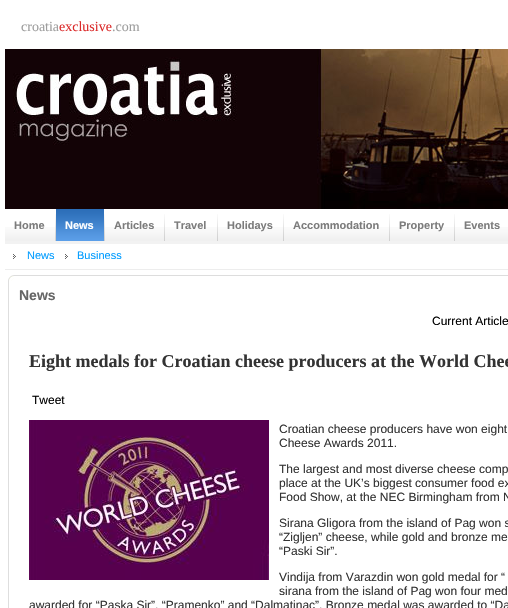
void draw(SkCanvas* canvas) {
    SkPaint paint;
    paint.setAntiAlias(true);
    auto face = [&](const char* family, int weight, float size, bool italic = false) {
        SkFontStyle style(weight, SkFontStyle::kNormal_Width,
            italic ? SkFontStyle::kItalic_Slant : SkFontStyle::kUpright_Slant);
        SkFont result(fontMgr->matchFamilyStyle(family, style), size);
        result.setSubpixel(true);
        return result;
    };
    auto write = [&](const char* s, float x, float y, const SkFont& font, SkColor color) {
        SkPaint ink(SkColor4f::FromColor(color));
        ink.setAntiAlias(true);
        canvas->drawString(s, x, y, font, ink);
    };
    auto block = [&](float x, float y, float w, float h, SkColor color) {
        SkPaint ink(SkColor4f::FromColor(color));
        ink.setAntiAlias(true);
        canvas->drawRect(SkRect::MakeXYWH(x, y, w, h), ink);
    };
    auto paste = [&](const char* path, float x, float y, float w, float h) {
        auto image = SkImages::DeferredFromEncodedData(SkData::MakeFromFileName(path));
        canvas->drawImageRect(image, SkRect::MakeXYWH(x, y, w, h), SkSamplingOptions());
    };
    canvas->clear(SK_ColorWHITE);
    auto kFont1 = face("Liberation Serif", 400, 14);
    write("croatia", 21, 31, kFont1, SkColorSetRGB(158, 158, 158));
    write("exclusive", 59, 31, kFont1, SkColorSetRGB(219, 42, 42));
    write(".com", 112, 31, kFont1, SkColorSetRGB(158, 158, 158));
    paste("pic1.png", 5, 49, 503, 160);
    paste("pic2.png", 5, 227, 503, 14);
    auto kFont2 = face("Liberation Sans", 700, 11);
    write("Home", 14, 229, kFont2, SkColorSetRGB(124, 124, 124));
    paste("pic3.png", 55, 214, 1, 27);
    paste("pic4.png", 56, 209, 48, 32);
    write("News", 65, 229, kFont2, SK_ColorWHITE);
    paste("pic3.png", 104, 214, 1, 27);
    write("Articles", 114, 229, kFont2, SkColorSetRGB(124, 124, 124));
    paste("pic3.png", 164, 214, 1, 27);
    write("Travel", 174, 229, kFont2, SkColorSetRGB(124, 124, 124));
    paste("pic3.png", 217, 214, 1, 27);
    write("Holidays", 227, 229, kFont2, SkColorSetRGB(124, 124, 124));
    paste("pic3.png", 283, 214, 1, 27);
    write("Accommodation", 293, 229, kFont2, SkColorSetRGB(124, 124, 124));
    paste("pic3.png", 389, 214, 1, 27);
    write("Property", 399, 229, kFont2, SkColorSetRGB(124, 124, 124));
    paste("pic3.png", 454, 214, 1, 27);
    write("Events", 464, 229, kFont2, SkColorSetRGB(124, 124, 124));
    block(5, 241, 503, 3, SkColorSetRGB(242, 242, 242));
    paste("pic5.png", 13, 254, 3, 5);
    auto kFont3 = face("Liberation Sans", 400, 11);
    write("News", 27, 259, kFont3, SkColorSetRGB(0, 156, 255));
    paste("pic5.png", 65, 254, 3, 5);
    write("Business", 77, 259, kFont3, SkColorSetRGB(0, 156, 255));
    block(5, 269, 503, 1, SkColorSetRGB(237, 237, 237));
    paste("pic6.png", 8, 275, 6, 6);
    block(14, 275, 494, 1, SkColorSetRGB(221, 221, 221));
    block(8, 281, 1, 327, SkColorSetRGB(222, 222, 222));
    auto kFont4 = face("Liberation Sans", 700, 14);
    write("News", 19, 300, kFont4, SkColorSetRGB(102, 102, 102));
    auto kFont5 = face("Liberation Sans", 400, 12);
    write("Current Article", 432, 325, kFont5, SK_ColorBLACK);
    auto kFont6 = face("Liberation Serif", 700, 18);
    write("Eight medals for Croatian cheese producers at the World Chee", 29, 367, kFont6, SkColorSetRGB(51, 51, 51));
    write("Tweet", 32, 404, kFont5, SK_ColorBLACK);
    paste("pic7.png", 29, 420, 240, 160);
    write("Croatian cheese producers have won eight", 279, 433, kFont5, SkColorSetRGB(51, 51, 51));
    write("Cheese Awards 2011.", 279, 447, kFont5, SkColorSetRGB(51, 51, 51));
    write("The largest and most diverse cheese comp", 279, 473, kFont5, SkColorSetRGB(51, 51, 51));
    write("place at the UK’s biggest consumer food ex", 279, 487, kFont5, SkColorSetRGB(51, 51, 51));
    write("Food Show, at the NEC Birmingham from N", 279, 501, kFont5, SkColorSetRGB(51, 51, 51));
    write("Sirana Gligora from the island of Pag won s", 279, 527, kFont5, SkColorSetRGB(51, 51, 51));
    write("“Zigljen” cheese, while gold and bronze me", 279, 541, kFont5, SkColorSetRGB(51, 51, 51));
    write("“Paski Sir”.", 279, 555, kFont5, SkColorSetRGB(51, 51, 51));
    write("Vindija from Varazdin won gold medal for “", 279, 581, kFont5, SkColorSetRGB(51, 51, 51));
    write("sirana from the island of Pag won four med", 279, 595, kFont5, SkColorSetRGB(51, 51, 51));
    write("awarded for “Paska Sir”, “Pramenko” and “Dalmatinac”. Bronze medal was awarded to “Da", 29, 609, kFont5, SkColorSetRGB(51, 51, 51));
}
